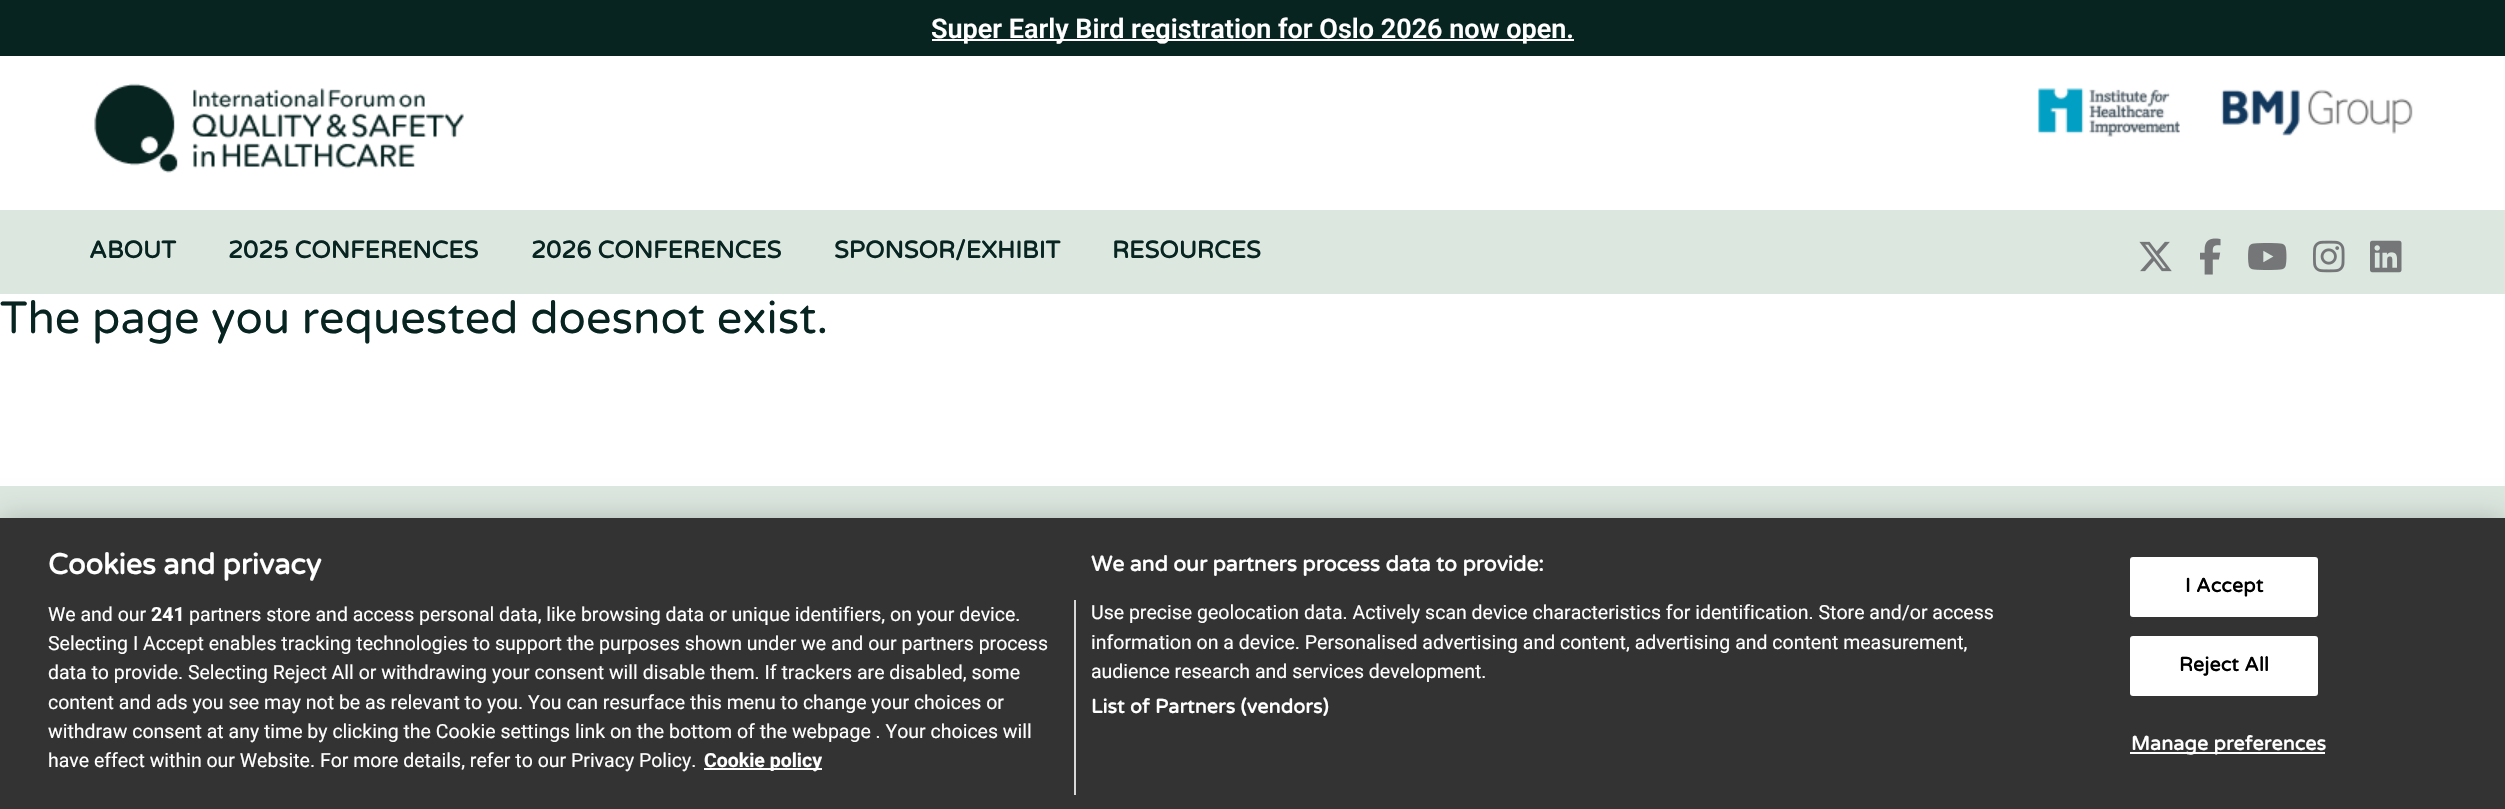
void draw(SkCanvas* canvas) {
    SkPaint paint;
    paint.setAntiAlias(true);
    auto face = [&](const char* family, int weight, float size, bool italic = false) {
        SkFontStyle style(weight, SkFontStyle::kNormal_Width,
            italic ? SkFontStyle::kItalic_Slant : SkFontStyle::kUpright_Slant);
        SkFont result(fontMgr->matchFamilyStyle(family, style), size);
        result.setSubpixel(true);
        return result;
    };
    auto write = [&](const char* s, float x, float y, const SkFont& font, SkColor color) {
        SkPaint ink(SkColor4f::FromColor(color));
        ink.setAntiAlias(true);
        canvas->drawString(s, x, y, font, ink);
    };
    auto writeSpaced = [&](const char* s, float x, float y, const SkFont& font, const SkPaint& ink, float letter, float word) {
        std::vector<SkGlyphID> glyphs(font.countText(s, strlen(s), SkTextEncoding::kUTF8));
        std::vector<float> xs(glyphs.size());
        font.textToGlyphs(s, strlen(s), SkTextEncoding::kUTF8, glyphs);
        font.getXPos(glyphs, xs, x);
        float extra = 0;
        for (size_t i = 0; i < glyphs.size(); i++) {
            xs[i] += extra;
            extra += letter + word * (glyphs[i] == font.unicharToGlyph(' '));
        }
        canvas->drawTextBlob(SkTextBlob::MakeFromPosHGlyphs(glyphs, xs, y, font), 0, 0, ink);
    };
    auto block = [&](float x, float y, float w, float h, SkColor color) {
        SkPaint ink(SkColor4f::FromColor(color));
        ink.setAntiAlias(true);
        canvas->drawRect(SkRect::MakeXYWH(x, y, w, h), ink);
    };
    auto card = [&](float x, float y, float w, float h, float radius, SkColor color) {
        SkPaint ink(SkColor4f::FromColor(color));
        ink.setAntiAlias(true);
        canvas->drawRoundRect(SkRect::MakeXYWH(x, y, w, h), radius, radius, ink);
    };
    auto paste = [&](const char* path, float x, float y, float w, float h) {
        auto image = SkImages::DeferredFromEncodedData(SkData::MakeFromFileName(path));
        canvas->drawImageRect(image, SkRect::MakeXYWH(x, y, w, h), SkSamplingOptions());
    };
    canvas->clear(SK_ColorWHITE);
    block(0, 0, 2505, 56, SkColorSetRGB(7, 36, 33));
    block(932, 39, 642, 2, SK_ColorWHITE);
    auto kFont1 = face("Roboto", 600, 27);
    write("Super Early Bird registration for Oslo 2026 now open.", 931, 38, kFont1, SK_ColorWHITE);
    paste("pic1.png", 94, 83, 370, 90);
    paste("pic2.png", 2038, 88, 142, 49);
    paste("pic3.png", 2221, 89, 192, 47);
    block(0, 210, 2505, 84, SkColorSetRGB(220, 231, 224));
    auto kFont2 = face("Varela Round", 700, 24);
    write("ABOUT", 89, 258, kFont2, SkColorSetRGB(7, 36, 33));
    write("2025 CONFERENCES", 228, 258, kFont2, SkColorSetRGB(7, 36, 33));
    write("2026 CONFERENCES", 531, 258, kFont2, SkColorSetRGB(7, 36, 33));
    write("SPONSOR/EXHIBIT", 834, 258, kFont2, SkColorSetRGB(7, 36, 33));
    write("RESOURCES", 1112, 258, kFont2, SkColorSetRGB(7, 36, 33));
    paste("pic4.png", 2139, 241, 33, 31);
    paste("pic5.png", 2200, 238, 21, 37);
    paste("pic6.png", 2248, 243, 39, 27);
    paste("pic7.png", 2313, 240, 32, 33);
    paste("pic8.png", 2370, 240, 32, 33);
    auto kFont3 = face("Varela Round", 400, 45);
    write("The page you requested doesnot exist.", 0, 333, kFont3, SkColorSetRGB(7, 36, 33));
    block(0, 486, 2505, 32, SkColorSetRGB(220, 231, 224));
    paint.setColor(SkColorSetARGB(51, 0, 0, 0));
    paint.setMaskFilter(SkMaskFilter::MakeBlur(kNormal_SkBlurStyle, 13.5f));
    canvas->drawRect(SkRect::MakeXYWH(0, 518, 2505, 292), paint);
    paint.setMaskFilter(nullptr);
    block(0, 518, 2505, 291, SkColorSetRGB(51, 51, 51));
    auto kFont4 = face("Varela Round", 700, 28.75f);
    write("Cookies and privacy", 48, 574, kFont4, SK_ColorWHITE);
    auto kFont5 = face("Varela Round", 700, 21.1f);
    write("We and our partners process data to provide:", 1091, 571, kFont5, SK_ColorWHITE);
    auto kFont6 = face("Roboto", 400, 19.5f);
    write("Use precise geolocation data. Actively scan device characteristics for identification. Store and/or access", 1091, 619, kFont6, SK_ColorWHITE);
    write("information on a device. Personalised advertising and content, advertising and content measurement,", 1091, 649, kFont6, SK_ColorWHITE);
    write("audience research and services development.", 1091, 678, kFont6, SK_ColorWHITE);
    auto kFont7 = face("Varela Round", 700, 19.5f);
    paint.setColor(SK_ColorWHITE);
    writeSpaced("List of Partners (vendors)", 1091, 713, kFont7, paint, 0.2f, 0);
    block(1074, 600, 2, 195, SkColorSetRGB(216, 216, 216));
    write("We and our", 48, 621, kFont6, SK_ColorWHITE);
    auto kFont8 = face("Roboto", 700, 19.5f);
    write("241", 151, 621, kFont8, SK_ColorWHITE);
    write("partners store and access personal data, like browsing data or unique identifiers, on your device.", 189, 621, kFont6, SK_ColorWHITE);
    write("Selecting I Accept enables tracking technologies to support the purposes shown under we and our partners process", 48, 650, kFont6, SK_ColorWHITE);
    write("data to provide. Selecting Reject All or withdrawing your consent will disable them. If trackers are disabled, some", 48, 679, kFont6, SK_ColorWHITE);
    write("content and ads you see may not be as relevant to you. You can resurface this menu to change your choices or", 48, 709, kFont6, SK_ColorWHITE);
    write("withdraw consent at any time by clicking the Cookie settings link on the bottom of the webpage . Your choices will", 48, 738, kFont6, SK_ColorWHITE);
    write("have effect within our Website. For more details, refer to our Privacy Policy.", 48, 767, kFont6, SK_ColorWHITE);
    block(704, 768, 118, 2, SK_ColorWHITE);
    write("Cookie policy", 704, 767, kFont8, SK_ColorWHITE);
    card(2130, 557, 188, 60, 3, SK_ColorWHITE);
    paint.setColor(SK_ColorBLACK);
    writeSpaced("I Accept", 2185, 592, kFont7, paint, 0.2f, 0);
    card(2130, 636, 188, 60, 3, SK_ColorWHITE);
    writeSpaced("Reject All", 2179, 671, kFont7, paint, 0.2f, 0);
    block(2130, 752, 195, 2, SK_ColorWHITE);
    paint.setColor(SK_ColorWHITE);
    writeSpaced("Manage preferences", 2131, 750, kFont7, paint, 0.2f, 0);
}
